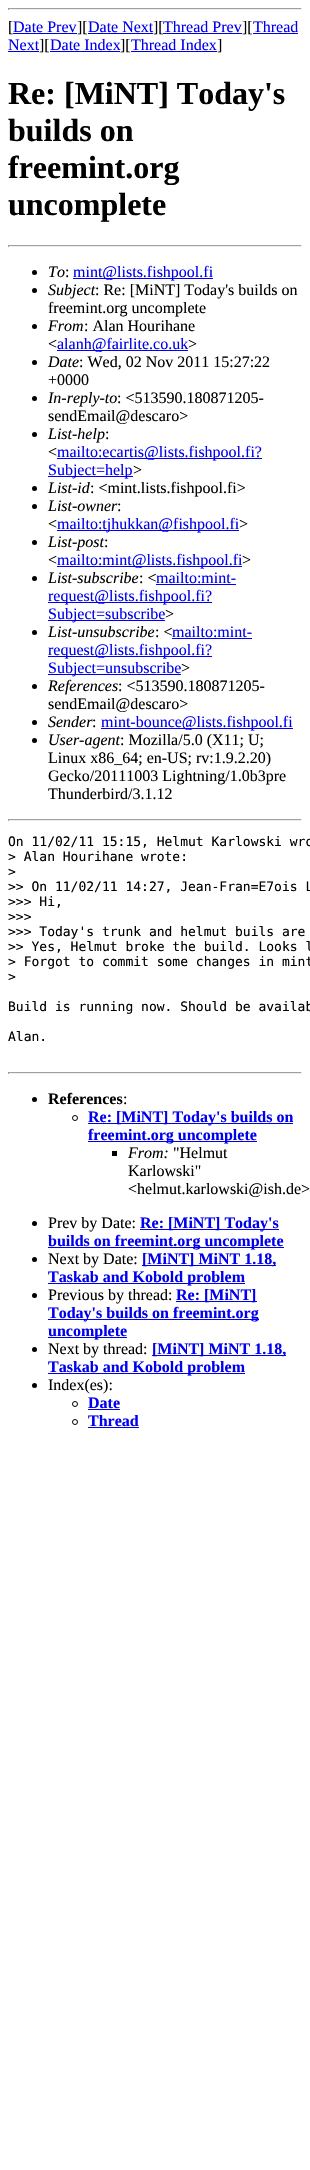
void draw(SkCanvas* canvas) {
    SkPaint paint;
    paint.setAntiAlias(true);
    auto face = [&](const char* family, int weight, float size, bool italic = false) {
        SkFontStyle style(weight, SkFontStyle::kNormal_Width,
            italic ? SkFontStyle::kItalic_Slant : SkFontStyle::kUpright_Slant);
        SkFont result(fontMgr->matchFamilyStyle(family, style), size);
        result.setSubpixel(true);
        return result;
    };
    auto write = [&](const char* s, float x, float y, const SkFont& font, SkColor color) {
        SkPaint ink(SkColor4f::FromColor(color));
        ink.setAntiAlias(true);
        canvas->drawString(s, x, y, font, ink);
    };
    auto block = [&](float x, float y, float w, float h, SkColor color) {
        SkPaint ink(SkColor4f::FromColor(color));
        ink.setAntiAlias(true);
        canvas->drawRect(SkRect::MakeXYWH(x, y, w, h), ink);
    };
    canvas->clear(SK_ColorWHITE);
    block(8, 8, 294, 1, SkColorSetRGB(159, 159, 159));
    block(301, 8, 1, 2, SkColorSetRGB(238, 238, 238));
    block(8, 9, 294, 1, SkColorSetRGB(238, 238, 238));
    block(8, 8, 1, 2, SkColorSetRGB(159, 159, 159));
    auto kFont1 = face("Liberation Serif", 400, 16);
    write("[", 8, 32, kFont1, SK_ColorBLACK);
    write("Date Prev", 13, 32, kFont1, SkColorSetRGB(0, 0, 238));
    block(13, 33, 64, 1, SkColorSetRGB(0, 0, 238));
    write("][", 77, 32, kFont1, SK_ColorBLACK);
    write("Date Next", 88, 32, kFont1, SkColorSetRGB(0, 0, 238));
    block(88, 33, 65, 1, SkColorSetRGB(0, 0, 238));
    write("][", 153, 32, kFont1, SK_ColorBLACK);
    write("Thread Prev", 163, 32, kFont1, SkColorSetRGB(0, 0, 238));
    block(163, 33, 79, 1, SkColorSetRGB(0, 0, 238));
    write("][", 242, 32, kFont1, SK_ColorBLACK);
    write("Thread", 253, 32, kFont1, SkColorSetRGB(0, 0, 238));
    block(253, 33, 45, 1, SkColorSetRGB(0, 0, 238));
    write("Next", 8, 50, kFont1, SkColorSetRGB(0, 0, 238));
    block(8, 51, 31, 1, SkColorSetRGB(0, 0, 238));
    write("][", 39, 50, kFont1, SK_ColorBLACK);
    write("Date Index", 50, 50, kFont1, SkColorSetRGB(0, 0, 238));
    block(50, 51, 70, 1, SkColorSetRGB(0, 0, 238));
    write("][", 120, 50, kFont1, SK_ColorBLACK);
    write("Thread Index", 131, 50, kFont1, SkColorSetRGB(0, 0, 238));
    block(131, 51, 86, 1, SkColorSetRGB(0, 0, 238));
    write("]", 217, 50, kFont1, SK_ColorBLACK);
    auto kFont2 = face("Liberation Serif", 700, 32);
    write("Re: [MiNT] Today's", 8, 104, kFont2, SK_ColorBLACK);
    write("builds on", 8, 141, kFont2, SK_ColorBLACK);
    write("freemint.org", 8, 178, kFont2, SK_ColorBLACK);
    write("uncomplete", 8, 215, kFont2, SK_ColorBLACK);
    block(8, 245, 294, 1, SkColorSetRGB(159, 159, 159));
    block(301, 245, 1, 2, SkColorSetRGB(238, 238, 238));
    block(8, 246, 294, 1, SkColorSetRGB(238, 238, 238));
    block(8, 245, 1, 2, SkColorSetRGB(159, 159, 159));
    paint.setColor(SK_ColorBLACK);
    canvas->drawCircle(34.5f, 272.5f, 2.5f, paint);
    auto kFont3 = face("Liberation Serif", 400, 16, true);
    write("To", 48, 277, kFont3, SK_ColorBLACK);
    write(":", 65, 277, kFont1, SK_ColorBLACK);
    block(73, 278, 140, 1, SkColorSetRGB(0, 0, 238));
    write("mint@lists.fishpool.fi", 73, 277, kFont1, SkColorSetRGB(0, 0, 238));
    canvas->drawCircle(34.5f, 290.5f, 2.5f, paint);
    write("Subject", 48, 295, kFont3, SK_ColorBLACK);
    write(": Re: [MiNT] Today's builds on", 95, 295, kFont1, SK_ColorBLACK);
    write("freemint.org uncomplete", 48, 313, kFont1, SK_ColorBLACK);
    canvas->drawCircle(34.5f, 326.5f, 2.5f, paint);
    write("From", 48, 331, kFont3, SK_ColorBLACK);
    write(": Alan Hourihane", 84, 331, kFont1, SK_ColorBLACK);
    write("<", 48, 349, kFont1, SK_ColorBLACK);
    block(57, 350, 131, 1, SkColorSetRGB(0, 0, 238));
    write("alanh@fairlite.co.uk", 57, 349, kFont1, SkColorSetRGB(0, 0, 238));
    write(">", 188, 349, kFont1, SK_ColorBLACK);
    canvas->drawCircle(34.5f, 362.5f, 2.5f, paint);
    write("Date", 48, 367, kFont3, SK_ColorBLACK);
    write(": Wed, 02 Nov 2011 15:27:22", 79, 367, kFont1, SK_ColorBLACK);
    write("+0000", 48, 385, kFont1, SK_ColorBLACK);
    canvas->drawCircle(34.5f, 398.5f, 2.5f, paint);
    write("In-reply-to", 48, 403, kFont3, SK_ColorBLACK);
    write(": <513590.180871205-", 117, 403, kFont1, SK_ColorBLACK);
    write("sendEmail@descaro>", 48, 421, kFont1, SK_ColorBLACK);
    canvas->drawCircle(34.5f, 434.5f, 2.5f, paint);
    write("List-help", 48, 439, kFont3, SK_ColorBLACK);
    write(":", 105, 439, kFont1, SK_ColorBLACK);
    write("<", 48, 457, kFont1, SK_ColorBLACK);
    block(57, 458, 205, 1, SkColorSetRGB(0, 0, 238));
    write("mailto:ecartis@lists.fishpool.fi?", 57, 457, kFont1, SkColorSetRGB(0, 0, 238));
    block(48, 476, 85, 1, SkColorSetRGB(0, 0, 238));
    write("Subject=help", 48, 475, kFont1, SkColorSetRGB(0, 0, 238));
    write(">", 133, 475, kFont1, SK_ColorBLACK);
    canvas->drawCircle(34.5f, 488.5f, 2.5f, paint);
    write("List-id", 48, 493, kFont3, SK_ColorBLACK);
    write(": <mint.lists.fishpool.fi>", 90, 493, kFont1, SK_ColorBLACK);
    canvas->drawCircle(34.5f, 506.5f, 2.5f, paint);
    write("List-owner", 48, 511, kFont3, SK_ColorBLACK);
    write(":", 117, 511, kFont1, SK_ColorBLACK);
    write("<", 48, 529, kFont1, SK_ColorBLACK);
    block(57, 530, 182, 1, SkColorSetRGB(0, 0, 238));
    write("mailto:tjhukkan@fishpool.fi", 57, 529, kFont1, SkColorSetRGB(0, 0, 238));
    write(">", 239, 529, kFont1, SK_ColorBLACK);
    canvas->drawCircle(34.5f, 542.5f, 2.5f, paint);
    write("List-post", 48, 547, kFont3, SK_ColorBLACK);
    write(":", 104, 547, kFont1, SK_ColorBLACK);
    write("<", 48, 565, kFont1, SK_ColorBLACK);
    block(57, 566, 185, 1, SkColorSetRGB(0, 0, 238));
    write("mailto:mint@lists.fishpool.fi", 57, 565, kFont1, SkColorSetRGB(0, 0, 238));
    write(">", 242, 565, kFont1, SK_ColorBLACK);
    canvas->drawCircle(34.5f, 578.5f, 2.5f, paint);
    write("List-subscribe", 48, 583, kFont3, SK_ColorBLACK);
    write(": <", 139, 583, kFont1, SK_ColorBLACK);
    write("mailto:mint-", 156, 583, kFont1, SkColorSetRGB(0, 0, 238));
    block(156, 584, 80, 1, SkColorSetRGB(0, 0, 238));
    block(48, 602, 164, 1, SkColorSetRGB(0, 0, 238));
    write("request@lists.fishpool.fi?", 48, 601, kFont1, SkColorSetRGB(0, 0, 238));
    block(48, 620, 117, 1, SkColorSetRGB(0, 0, 238));
    write("Subject=subscribe", 48, 619, kFont1, SkColorSetRGB(0, 0, 238));
    write(">", 165, 619, kFont1, SK_ColorBLACK);
    canvas->drawCircle(34.5f, 632.5f, 2.5f, paint);
    write("List-unsubscribe", 48, 637, kFont3, SK_ColorBLACK);
    write(": <", 155, 637, kFont1, SK_ColorBLACK);
    write("mailto:mint-", 172, 637, kFont1, SkColorSetRGB(0, 0, 238));
    block(172, 638, 80, 1, SkColorSetRGB(0, 0, 238));
    block(48, 656, 164, 1, SkColorSetRGB(0, 0, 238));
    write("request@lists.fishpool.fi?", 48, 655, kFont1, SkColorSetRGB(0, 0, 238));
    block(48, 674, 133, 1, SkColorSetRGB(0, 0, 238));
    write("Subject=unsubscribe", 48, 673, kFont1, SkColorSetRGB(0, 0, 238));
    write(">", 181, 673, kFont1, SK_ColorBLACK);
    canvas->drawCircle(34.5f, 686.5f, 2.5f, paint);
    write("References", 48, 691, kFont3, SK_ColorBLACK);
    write(": <513590.180871205-", 118, 691, kFont1, SK_ColorBLACK);
    write("sendEmail@descaro>", 48, 709, kFont1, SK_ColorBLACK);
    canvas->drawCircle(34.5f, 722.5f, 2.5f, paint);
    write("Sender", 48, 727, kFont3, SK_ColorBLACK);
    write(":", 92, 727, kFont1, SK_ColorBLACK);
    block(101, 728, 192, 1, SkColorSetRGB(0, 0, 238));
    write("mint-bounce@lists.fishpool.fi", 101, 727, kFont1, SkColorSetRGB(0, 0, 238));
    canvas->drawCircle(34.5f, 740.5f, 2.5f, paint);
    write("User-agent", 48, 745, kFont3, SK_ColorBLACK);
    write(": Mozilla/5.0 (X11; U;", 120, 745, kFont1, SK_ColorBLACK);
    write("Linux x86_64; en-US; rv:1.9.2.20)", 48, 763, kFont1, SK_ColorBLACK);
    write("Gecko/20111003 Lightning/1.0b3pre", 48, 781, kFont1, SK_ColorBLACK);
    write("Thunderbird/3.1.12", 48, 799, kFont1, SK_ColorBLACK);
    block(8, 819, 294, 1, SkColorSetRGB(159, 159, 159));
    block(301, 819, 1, 2, SkColorSetRGB(238, 238, 238));
    block(8, 820, 294, 1, SkColorSetRGB(238, 238, 238));
    block(8, 819, 1, 2, SkColorSetRGB(159, 159, 159));
    auto kFont4 = face("DejaVu Sans Mono", 400, 13);
    write("On 11/02/11 15:15, Helmut Karlowski wro", 8, 846, kFont4, SK_ColorBLACK);
    write("> Alan Hourihane wrote:", 8, 861, kFont4, SK_ColorBLACK);
    write(">", 8, 876, kFont4, SK_ColorBLACK);
    write(">> On 11/02/11 14:27, Jean-Fran=E7ois L", 8, 891, kFont4, SK_ColorBLACK);
    write(">>> Hi,", 8, 906, kFont4, SK_ColorBLACK);
    write(">>>", 8, 921, kFont4, SK_ColorBLACK);
    write(">>> Today's trunk and helmut buils are", 8, 936, kFont4, SK_ColorBLACK);
    write(">> Yes, Helmut broke the build. Looks l", 8, 951, kFont4, SK_ColorBLACK);
    write("> Forgot to commit some changes in mint", 8, 966, kFont4, SK_ColorBLACK);
    write(">", 8, 981, kFont4, SK_ColorBLACK);
    write("Build is running now. Should be availab", 8, 1011, kFont4, SK_ColorBLACK);
    write("Alan.", 8, 1041, kFont4, SK_ColorBLACK);
    block(8, 1072, 294, 1, SkColorSetRGB(159, 159, 159));
    block(301, 1072, 1, 2, SkColorSetRGB(238, 238, 238));
    block(8, 1073, 294, 1, SkColorSetRGB(238, 238, 238));
    block(8, 1072, 1, 2, SkColorSetRGB(159, 159, 159));
    canvas->drawCircle(34.5f, 1099.5f, 2.5f, paint);
    auto kFont5 = face("Liberation Serif", 700, 16);
    write("References", 48, 1104, kFont5, SK_ColorBLACK);
    write(":", 123, 1104, kFont1, SK_ColorBLACK);
    paint.setStyle(SkPaint::kStroke_Style);
    paint.setStrokeWidth(1);
    canvas->drawCircle(75, 1118, 2.5f, paint);
    block(88, 1123, 205, 1, SkColorSetRGB(0, 0, 238));
    write("Re: [MiNT] Today's builds on", 88, 1122, kFont5, SkColorSetRGB(0, 0, 238));
    block(88, 1141, 169, 1, SkColorSetRGB(0, 0, 238));
    write("freemint.org uncomplete", 88, 1140, kFont5, SkColorSetRGB(0, 0, 238));
    block(112, 1151, 5, 5, SK_ColorBLACK);
    write("From:", 128, 1158, kFont3, SK_ColorBLACK);
    write("\"Helmut", 173, 1158, kFont1, SK_ColorBLACK);
    write("Karlowski\"", 128, 1176, kFont1, SK_ColorBLACK);
    write("<helmut.karlowski@ish.de>", 128, 1194, kFont1, SK_ColorBLACK);
    paint.setStyle(SkPaint::kFill_Style);
    canvas->drawCircle(34.5f, 1223.5f, 2.5f, paint);
    write("Prev by Date:", 48, 1228, kFont1, SK_ColorBLACK);
    block(140, 1229, 139, 1, SkColorSetRGB(0, 0, 238));
    write("Re: [MiNT] Today's", 140, 1228, kFont5, SkColorSetRGB(0, 0, 238));
    block(48, 1247, 236, 1, SkColorSetRGB(0, 0, 238));
    write("builds on freemint.org uncomplete", 48, 1246, kFont5, SkColorSetRGB(0, 0, 238));
    canvas->drawCircle(34.5f, 1259.5f, 2.5f, paint);
    write("Next by Date:", 48, 1264, kFont1, SK_ColorBLACK);
    block(142, 1265, 134, 1, SkColorSetRGB(0, 0, 238));
    write("[MiNT] MiNT 1.18,", 142, 1264, kFont5, SkColorSetRGB(0, 0, 238));
    block(48, 1283, 197, 1, SkColorSetRGB(0, 0, 238));
    write("Taskab and Kobold problem", 48, 1282, kFont5, SkColorSetRGB(0, 0, 238));
    canvas->drawCircle(34.5f, 1295.5f, 2.5f, paint);
    write("Previous by thread:", 48, 1300, kFont1, SK_ColorBLACK);
    block(176, 1301, 81, 1, SkColorSetRGB(0, 0, 238));
    write("Re: [MiNT]", 176, 1300, kFont5, SkColorSetRGB(0, 0, 238));
    block(48, 1319, 211, 1, SkColorSetRGB(0, 0, 238));
    write("Today's builds on freemint.org", 48, 1318, kFont5, SkColorSetRGB(0, 0, 238));
    block(48, 1337, 79, 1, SkColorSetRGB(0, 0, 238));
    write("uncomplete", 48, 1336, kFont5, SkColorSetRGB(0, 0, 238));
    canvas->drawCircle(34.5f, 1349.5f, 2.5f, paint);
    write("Next by thread:", 48, 1354, kFont1, SK_ColorBLACK);
    block(152, 1355, 134, 1, SkColorSetRGB(0, 0, 238));
    write("[MiNT] MiNT 1.18,", 152, 1354, kFont5, SkColorSetRGB(0, 0, 238));
    block(48, 1373, 197, 1, SkColorSetRGB(0, 0, 238));
    write("Taskab and Kobold problem", 48, 1372, kFont5, SkColorSetRGB(0, 0, 238));
    canvas->drawCircle(34.5f, 1385.5f, 2.5f, paint);
    write("Index(es):", 48, 1390, kFont1, SK_ColorBLACK);
    paint.setStyle(SkPaint::kStroke_Style);
    canvas->drawCircle(75, 1404, 2.5f, paint);
    write("Date", 88, 1408, kFont5, SkColorSetRGB(0, 0, 238));
    block(88, 1409, 32, 1, SkColorSetRGB(0, 0, 238));
    canvas->drawCircle(75, 1422, 2.5f, paint);
    write("Thread", 88, 1426, kFont5, SkColorSetRGB(0, 0, 238));
    block(88, 1427, 51, 1, SkColorSetRGB(0, 0, 238));
}
